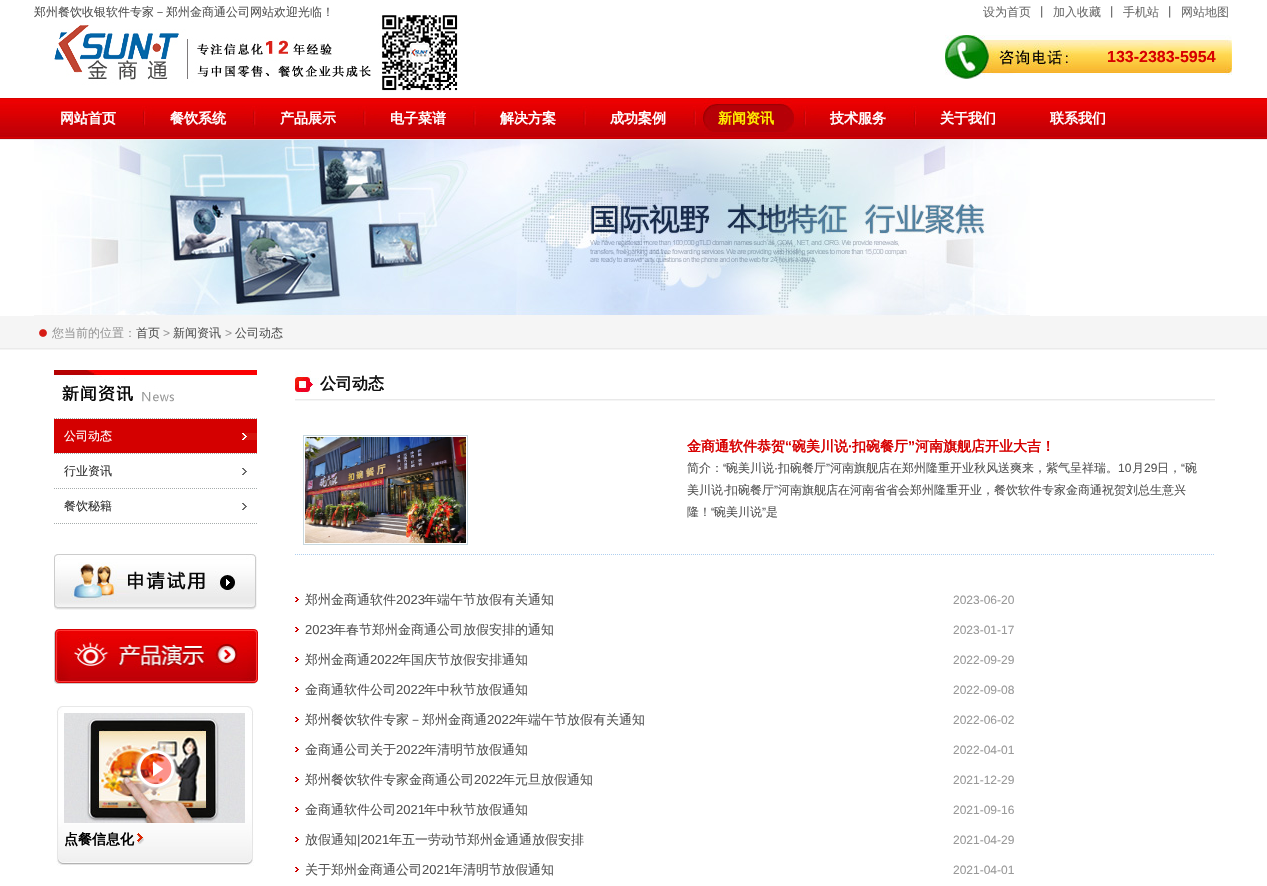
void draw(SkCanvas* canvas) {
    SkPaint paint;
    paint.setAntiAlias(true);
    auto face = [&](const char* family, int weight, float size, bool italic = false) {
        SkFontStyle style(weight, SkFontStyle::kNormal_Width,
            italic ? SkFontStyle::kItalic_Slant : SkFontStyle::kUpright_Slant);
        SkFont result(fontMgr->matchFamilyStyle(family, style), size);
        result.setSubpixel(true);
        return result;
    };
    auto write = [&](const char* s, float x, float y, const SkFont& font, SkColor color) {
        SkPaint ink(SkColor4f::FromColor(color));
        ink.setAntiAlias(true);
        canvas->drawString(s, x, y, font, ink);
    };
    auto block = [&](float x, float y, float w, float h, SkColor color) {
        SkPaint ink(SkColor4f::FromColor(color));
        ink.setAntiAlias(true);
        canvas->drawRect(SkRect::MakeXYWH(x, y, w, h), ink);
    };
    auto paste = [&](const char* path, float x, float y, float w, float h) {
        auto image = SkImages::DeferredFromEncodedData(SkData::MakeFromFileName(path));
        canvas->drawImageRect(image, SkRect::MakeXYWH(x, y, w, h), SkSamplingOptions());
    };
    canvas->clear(SK_ColorWHITE);
    paste("pic1.png", 54, 15, 404, 76);
    auto kFont1 = face("WenQuanYi Zen Hei", 500, 12);
    write("郑州餐饮收银软件专家－郑州金商通公司网站欢迎光临！", 34, 16, kFont1, SkColorSetRGB(85, 85, 85));
    write("设为首页", 983, 16, kFont1, SkColorSetRGB(108, 108, 108));
    write("丨", 1036, 16, kFont1, SkColorSetRGB(85, 85, 85));
    write("加入收藏", 1053, 16, kFont1, SkColorSetRGB(108, 108, 108));
    write("丨", 1106, 16, kFont1, SkColorSetRGB(85, 85, 85));
    write("手机站", 1123, 16, kFont1, SkColorSetRGB(108, 108, 108));
    write("丨", 1164, 16, kFont1, SkColorSetRGB(85, 85, 85));
    write("网站地图", 1181, 16, kFont1, SkColorSetRGB(108, 108, 108));
    paste("pic2.png", 945, 35, 287, 44);
    auto kFont2 = face("Liberation Sans", 700, 16);
    write("133-2383-5954", 1107, 62, kFont2, SkColorSetRGB(215, 0, 0));
    block(0, 139, 1267, 1, SkColorSetRGB(237, 237, 237));
    paste("pic3.png", 0, 98, 1267, 41);
    paste("pic4.png", 141, 106, 778, 24);
    auto kFont3 = face("WenQuanYi Zen Hei", 700, 14);
    write("网站首页", 60, 123, kFont3, SK_ColorWHITE);
    write("餐饮系统", 170, 123, kFont3, SK_ColorWHITE);
    write("产品展示", 280, 123, kFont3, SK_ColorWHITE);
    write("电子菜谱", 390, 123, kFont3, SK_ColorWHITE);
    write("解决方案", 500, 123, kFont3, SK_ColorWHITE);
    write("成功案例", 610, 123, kFont3, SK_ColorWHITE);
    paste("pic5.png", 696, 98, 100, 38);
    write("新闻资讯", 718, 123, kFont3, SkColorSetRGB(255, 240, 0));
    write("技术服务", 830, 123, kFont3, SK_ColorWHITE);
    write("关于我们", 940, 123, kFont3, SK_ColorWHITE);
    write("联系我们", 1050, 123, kFont3, SK_ColorWHITE);
    paste("pic6.png", 34, 140, 996, 176);
    paste("pic7.png", 0, 316, 1267, 34);
    paste("pic8.png", 39, 329, 8, 8);
    write("您当前的位置：", 52, 337, kFont1, SkColorSetRGB(153, 153, 153));
    write("首页", 136, 337, kFont1, SkColorSetRGB(85, 85, 85));
    auto kFont4 = face("Liberation Sans", 400, 12);
    write(">", 163, 337, kFont4, SkColorSetRGB(153, 153, 153));
    write("新闻资讯", 173, 337, kFont1, SkColorSetRGB(85, 85, 85));
    write(">", 225, 337, kFont4, SkColorSetRGB(153, 153, 153));
    write("公司动态", 235, 337, kFont1, SkColorSetRGB(85, 85, 85));
    paste("pic9.png", 54, 370, 203, 32);
    paint.setStyle(SkPaint::kStroke_Style);
    paint.setStrokeWidth(1);
    paint.setColor(SkColorSetRGB(166, 172, 172));
    paint.setPathEffect(SkDashPathEffect::Make({{1, 1}}, 0));
    canvas->drawPath(SkPathBuilder().moveTo(54, 418.5f).lineTo(257, 418.5f).detach(), paint);
    paint.setPathEffect(nullptr);
    paint.setPathEffect(SkDashPathEffect::Make({{1, 1}}, 0));
    canvas->drawPath(SkPathBuilder().moveTo(54, 453.5f).lineTo(257, 453.5f).detach(), paint);
    paint.setPathEffect(nullptr);
    block(54, 419, 203, 34, SkColorSetRGB(212, 0, 0));
    paste("pic10.png", 242, 433, 15, 7);
    write("公司动态", 64, 440, kFont1, SK_ColorWHITE);
    paint.setPathEffect(SkDashPathEffect::Make({{1, 1}}, 0));
    canvas->drawPath(SkPathBuilder().moveTo(54, 488.5f).lineTo(257, 488.5f).detach(), paint);
    paint.setPathEffect(nullptr);
    paste("pic11.png", 242, 468, 5, 7);
    write("行业资讯", 64, 475, kFont1, SkColorSetRGB(51, 51, 51));
    paint.setPathEffect(SkDashPathEffect::Make({{1, 1}}, 0));
    canvas->drawPath(SkPathBuilder().moveTo(54, 523.5f).lineTo(257, 523.5f).detach(), paint);
    paint.setPathEffect(nullptr);
    paste("pic11.png", 242, 503, 5, 7);
    write("餐饮秘籍", 64, 510, kFont1, SkColorSetRGB(51, 51, 51));
    paste("pic12.png", 54, 554, 203, 56);
    paste("pic13.png", 54, 629, 204, 55);
    paste("pic14.png", 56, 706, 198, 160);
    paste("pic15.png", 64, 713, 181, 110);
    paste("pic16.png", 133, 746, 46, 45);
    write("点餐信息化", 64, 844, kFont3, SK_ColorBLACK);
    paste("pic17.png", 137, 833, 7, 11);
    paste("pic18.png", 295, 370, 920, 31);
    auto kFont5 = face("WenQuanYi Zen Hei", 700, 16);
    write("公司动态", 320, 389, kFont5, SkColorSetRGB(17, 17, 17));
    paste("pic19.png", 295, 554, 919, 1);
    paint.setColor(SkColorSetRGB(200, 216, 223));
    canvas->drawRect(SkRect::MakeXYWH(303.5f, 435.5f, 164, 109), paint);
    paste("pic20.png", 305, 437, 161, 106);
    write("金商通软件恭贺", 687, 451, kFont3, SkColorSetRGB(215, 0, 0));
    auto kFont6 = face("Liberation Sans", 700, 14);
    write("“", 785, 451, kFont6, SkColorSetRGB(215, 0, 0));
    write("碗美川说", 792, 451, kFont3, SkColorSetRGB(215, 0, 0));
    write("扣碗餐厅", 852, 451, kFont3, SkColorSetRGB(215, 0, 0));
    write("”", 908, 451, kFont6, SkColorSetRGB(215, 0, 0));
    write("河南旗舰店开业大吉！", 915, 451, kFont3, SkColorSetRGB(215, 0, 0));
    write("·", 848, 451, kFont6, SkColorSetRGB(215, 0, 0));
    write("简介：", 687, 472, kFont1, SkColorSetRGB(85, 85, 85));
    write("“", 723, 472, kFont4, SkColorSetRGB(85, 85, 85));
    write("碗美川说", 726, 472, kFont1, SkColorSetRGB(85, 85, 85));
    write("扣碗餐厅", 778, 472, kFont1, SkColorSetRGB(85, 85, 85));
    write("”", 826, 472, kFont4, SkColorSetRGB(85, 85, 85));
    write("河南旗舰店在郑州隆重开业秋风送爽来，紫气呈祥瑞。", 830, 472, kFont1, SkColorSetRGB(85, 85, 85));
    write("10", 1118, 472, kFont4, SkColorSetRGB(85, 85, 85));
    write("月", 1132, 472, kFont1, SkColorSetRGB(85, 85, 85));
    write("29", 1144, 472, kFont4, SkColorSetRGB(85, 85, 85));
    write("日，", 1157, 472, kFont1, SkColorSetRGB(85, 85, 85));
    write("“", 1181, 472, kFont4, SkColorSetRGB(85, 85, 85));
    write("碗", 1185, 472, kFont1, SkColorSetRGB(85, 85, 85));
    write("·", 774, 472, kFont4, SkColorSetRGB(85, 85, 85));
    write("美川说", 687, 494, kFont1, SkColorSetRGB(85, 85, 85));
    write("扣碗餐厅", 726, 494, kFont1, SkColorSetRGB(85, 85, 85));
    write("”", 774, 494, kFont4, SkColorSetRGB(85, 85, 85));
    write("河南旗舰店在河南省省会郑州隆重开业，餐饮软件专家金商通祝贺刘总生意兴", 778, 494, kFont1, SkColorSetRGB(85, 85, 85));
    write("·", 723, 494, kFont4, SkColorSetRGB(85, 85, 85));
    write("隆！", 687, 516, kFont1, SkColorSetRGB(85, 85, 85));
    write("“", 711, 516, kFont4, SkColorSetRGB(85, 85, 85));
    write("碗美川说", 714, 516, kFont1, SkColorSetRGB(85, 85, 85));
    write("”", 762, 516, kFont4, SkColorSetRGB(85, 85, 85));
    write("是", 766, 516, kFont1, SkColorSetRGB(85, 85, 85));
    paste("pic21.png", 295, 597, 4, 7);
    auto kFont7 = face("WenQuanYi Zen Hei", 500, 13);
    write("郑州金商通软件", 305, 604, kFont7, SkColorSetRGB(85, 85, 85));
    auto kFont8 = face("Liberation Sans", 400, 13);
    write("2023", 396, 604, kFont8, SkColorSetRGB(85, 85, 85));
    write("年端午节放假有关通知", 424, 604, kFont7, SkColorSetRGB(85, 85, 85));
    write("2023-06-20", 953, 604, kFont4, SkColorSetRGB(153, 153, 153));
    paste("pic21.png", 295, 627, 4, 7);
    write("2023", 305, 634, kFont8, SkColorSetRGB(85, 85, 85));
    write("年春节郑州金商通公司放假安排的通知", 333, 634, kFont7, SkColorSetRGB(85, 85, 85));
    write("2023-01-17", 953, 634, kFont4, SkColorSetRGB(153, 153, 153));
    paste("pic21.png", 295, 657, 4, 7);
    write("郑州金商通", 305, 664, kFont7, SkColorSetRGB(85, 85, 85));
    write("2022", 370, 664, kFont8, SkColorSetRGB(85, 85, 85));
    write("年国庆节放假安排通知", 398, 664, kFont7, SkColorSetRGB(85, 85, 85));
    write("2022-09-29", 953, 664, kFont4, SkColorSetRGB(153, 153, 153));
    paste("pic21.png", 295, 687, 4, 7);
    write("金商通软件公司", 305, 694, kFont7, SkColorSetRGB(85, 85, 85));
    write("2022", 396, 694, kFont8, SkColorSetRGB(85, 85, 85));
    write("年中秋节放假通知", 424, 694, kFont7, SkColorSetRGB(85, 85, 85));
    write("2022-09-08", 953, 694, kFont4, SkColorSetRGB(153, 153, 153));
    paste("pic21.png", 295, 717, 4, 7);
    write("郑州餐饮软件专家－郑州金商通", 305, 724, kFont7, SkColorSetRGB(85, 85, 85));
    write("2022", 487, 724, kFont8, SkColorSetRGB(85, 85, 85));
    write("年端午节放假有关通知", 515, 724, kFont7, SkColorSetRGB(85, 85, 85));
    write("2022-06-02", 953, 724, kFont4, SkColorSetRGB(153, 153, 153));
    paste("pic21.png", 295, 747, 4, 7);
    write("金商通公司关于", 305, 754, kFont7, SkColorSetRGB(85, 85, 85));
    write("2022", 396, 754, kFont8, SkColorSetRGB(85, 85, 85));
    write("年清明节放假通知", 424, 754, kFont7, SkColorSetRGB(85, 85, 85));
    write("2022-04-01", 953, 754, kFont4, SkColorSetRGB(153, 153, 153));
    paste("pic21.png", 295, 777, 4, 7);
    write("郑州餐饮软件专家金商通公司", 305, 784, kFont7, SkColorSetRGB(85, 85, 85));
    write("2022", 474, 784, kFont8, SkColorSetRGB(85, 85, 85));
    write("年元旦放假通知", 502, 784, kFont7, SkColorSetRGB(85, 85, 85));
    write("2021-12-29", 953, 784, kFont4, SkColorSetRGB(153, 153, 153));
    paste("pic21.png", 295, 807, 4, 7);
    write("金商通软件公司", 305, 814, kFont7, SkColorSetRGB(85, 85, 85));
    write("2021", 396, 814, kFont8, SkColorSetRGB(85, 85, 85));
    write("年中秋节放假通知", 424, 814, kFont7, SkColorSetRGB(85, 85, 85));
    write("2021-09-16", 953, 814, kFont4, SkColorSetRGB(153, 153, 153));
    paste("pic21.png", 295, 837, 4, 7);
    write("放假通知", 305, 844, kFont7, SkColorSetRGB(85, 85, 85));
    write("|2021", 357, 844, kFont8, SkColorSetRGB(85, 85, 85));
    write("年五一劳动节郑州金通通放假安排", 389, 844, kFont7, SkColorSetRGB(85, 85, 85));
    write("2021-04-29", 953, 844, kFont4, SkColorSetRGB(153, 153, 153));
    paste("pic21.png", 295, 867, 4, 7);
    write("关于郑州金商通公司", 305, 874, kFont7, SkColorSetRGB(85, 85, 85));
    write("2021", 422, 874, kFont8, SkColorSetRGB(85, 85, 85));
    write("年清明节放假通知", 450, 874, kFont7, SkColorSetRGB(85, 85, 85));
    write("2021-04-01", 953, 874, kFont4, SkColorSetRGB(153, 153, 153));
}
